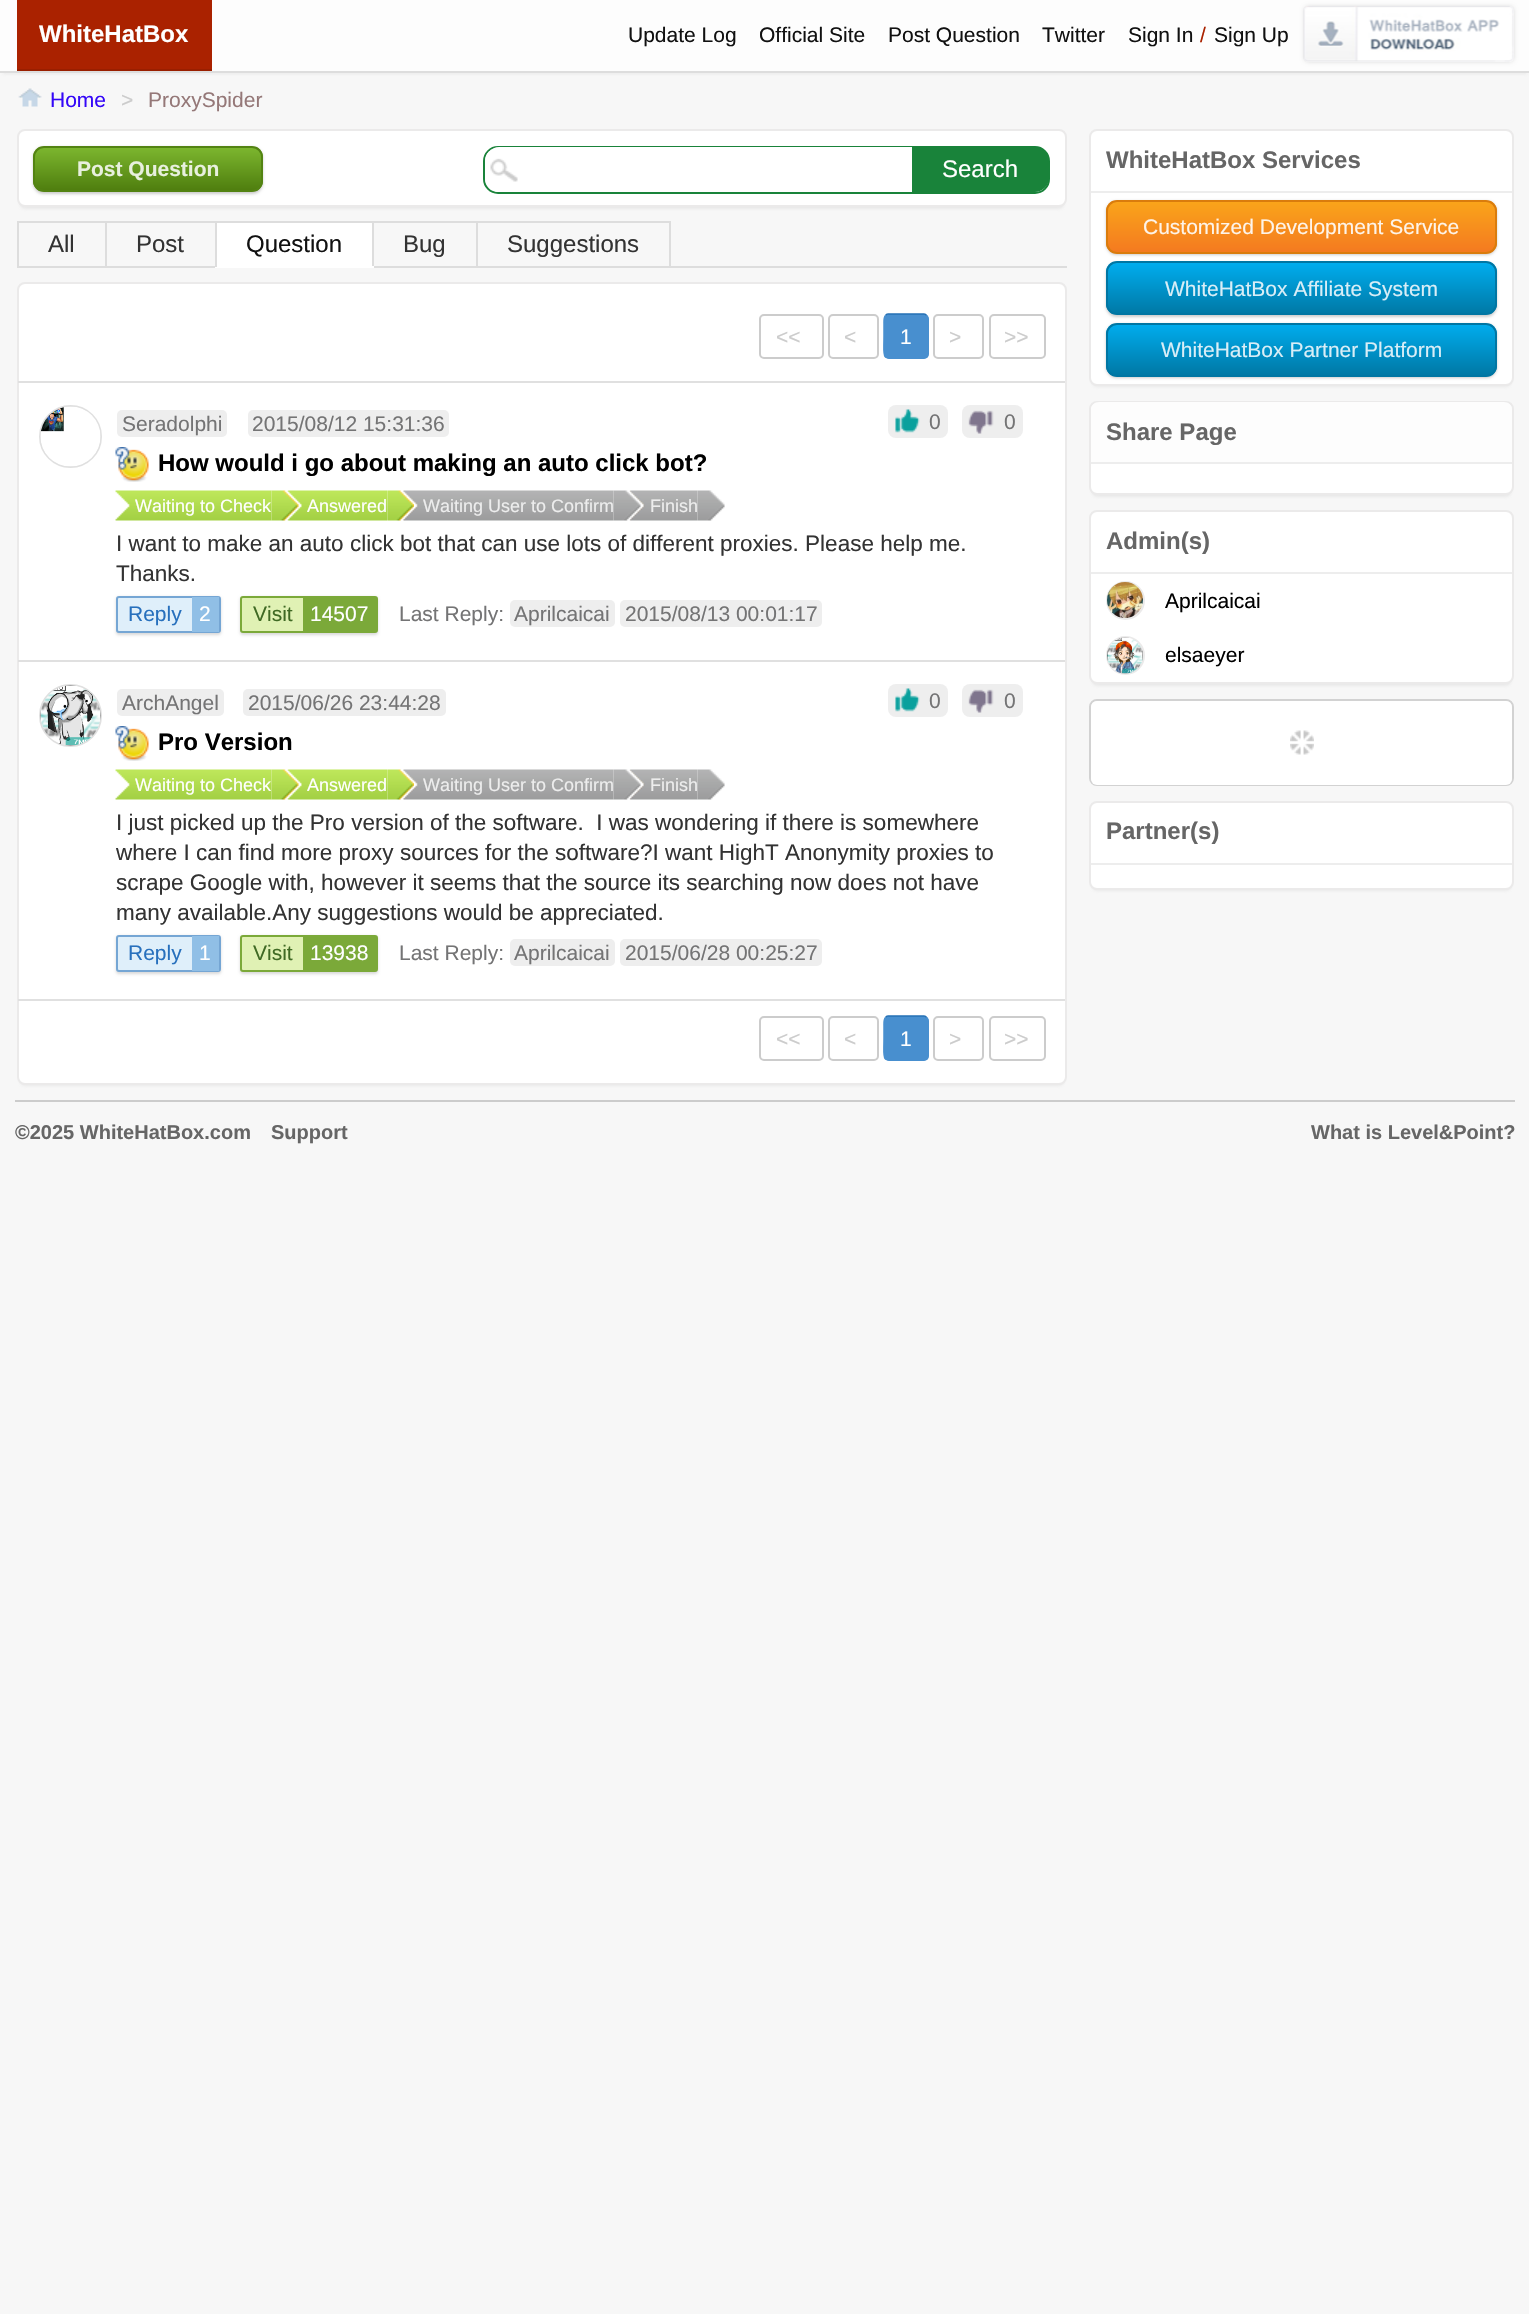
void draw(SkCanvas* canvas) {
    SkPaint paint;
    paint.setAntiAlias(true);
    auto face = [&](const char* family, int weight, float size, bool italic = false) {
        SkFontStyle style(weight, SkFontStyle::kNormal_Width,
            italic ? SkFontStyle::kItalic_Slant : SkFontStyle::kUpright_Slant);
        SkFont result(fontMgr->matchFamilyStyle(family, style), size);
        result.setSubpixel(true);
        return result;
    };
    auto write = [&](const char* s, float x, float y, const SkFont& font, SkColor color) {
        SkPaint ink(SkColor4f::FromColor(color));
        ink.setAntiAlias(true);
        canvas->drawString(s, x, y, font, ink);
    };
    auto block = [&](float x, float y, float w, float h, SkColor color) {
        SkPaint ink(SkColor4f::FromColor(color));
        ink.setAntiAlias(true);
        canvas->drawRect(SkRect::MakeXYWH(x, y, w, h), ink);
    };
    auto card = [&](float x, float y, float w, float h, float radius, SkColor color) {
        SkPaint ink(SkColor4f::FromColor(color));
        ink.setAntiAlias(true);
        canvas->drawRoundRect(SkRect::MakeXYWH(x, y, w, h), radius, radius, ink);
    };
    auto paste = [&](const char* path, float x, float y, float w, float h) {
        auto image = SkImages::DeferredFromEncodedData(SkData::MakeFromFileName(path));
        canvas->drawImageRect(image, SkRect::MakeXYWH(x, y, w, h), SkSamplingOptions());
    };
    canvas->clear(SkColorSetRGB(247, 247, 247));
    paint.setColor(SkColorSetARGB(77, 200, 200, 200));
    paint.setMaskFilter(SkMaskFilter::MakeBlur(kNormal_SkBlurStyle, 1.5f));
    canvas->drawRect(SkRect::MakeXYWH(3, 8, 1524, 66), paint);
    paint.setMaskFilter(nullptr);
    block(0, 0, 1529, 71, SkColorSetRGB(253, 253, 253));
    block(0, 71, 1529, 2, SkColorSetRGB(221, 221, 221));
    block(17, 0, 195, 69, SkColorSetRGB(170, 34, 0));
    block(17, 69, 195, 2, SkColorSetRGB(153, 31, 0));
    auto kFont1 = face("Liberation Sans", 700, 24);
    write("WhiteHatBox", 39, 42, kFont1, SK_ColorWHITE);
    auto kFont2 = face("Liberation Sans", 400, 21);
    write("Update Log", 628, 42, kFont2, SkColorSetRGB(17, 17, 17));
    write("Official Site", 759, 42, kFont2, SkColorSetRGB(17, 17, 17));
    write("Post Question", 888, 42, kFont2, SkColorSetRGB(17, 17, 17));
    write("Twitter", 1042, 42, kFont2, SkColorSetRGB(17, 17, 17));
    write("Sign In", 1128, 42, kFont2, SkColorSetRGB(17, 17, 17));
    write("/", 1200, 42, kFont2, SkColorSetRGB(170, 34, 0));
    write("Sign Up", 1214, 42, kFont2, SkColorSetRGB(17, 17, 17));
    canvas->save();
    canvas->clipPath(SkPathBuilder(SkPathFillType::kEvenOdd).moveTo(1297, 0).lineTo(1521, 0).lineTo(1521, 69).lineTo(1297, 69).close().moveTo(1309, 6).lineTo(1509, 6).cubicTo(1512, 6, 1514, 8, 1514, 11).lineTo(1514, 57).cubicTo(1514, 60, 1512, 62, 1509, 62).lineTo(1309, 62).cubicTo(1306, 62, 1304, 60, 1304, 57).lineTo(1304, 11).cubicTo(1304, 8, 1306, 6, 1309, 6).close().detach(), true);
    paint.setColor(SkColorSetRGB(221, 221, 221));
    paint.setMaskFilter(SkMaskFilter::MakeBlur(kNormal_SkBlurStyle, 2));
    canvas->drawRoundRect(SkRect::MakeXYWH(1304, 6, 210, 56), 5, 5, paint);
    paint.setMaskFilter(nullptr);
    canvas->restore();
    paste("pic1.png", 1303, 6, 211, 56);
    paste("pic2.png", 18, 88, 24, 19);
    write("Home", 50, 107, kFont2, SkColorSetRGB(52, 7, 248));
    write(">", 121, 107, kFont2, SkColorSetRGB(204, 204, 204));
    write("ProxySpider", 148, 107, kFont2, SkColorSetRGB(149, 120, 120));
    paint.setColor(SkColorSetARGB(77, 200, 200, 200));
    paint.setMaskFilter(SkMaskFilter::MakeBlur(kNormal_SkBlurStyle, 1.5f));
    canvas->drawRoundRect(SkRect::MakeXYWH(20, 137, 1044, 72), 5, 5, paint);
    paint.setMaskFilter(nullptr);
    paint.setColor(SK_ColorWHITE);
    canvas->drawRoundRect(SkRect::MakeXYWH(18, 130, 1048, 76), 7, 7, paint);
    paint.setStyle(SkPaint::kStroke_Style);
    paint.setStrokeWidth(2);
    paint.setColor(SkColorSetRGB(235, 234, 234));
    canvas->drawRoundRect(SkRect::MakeXYWH(18, 130, 1048, 76), 7, 7, paint);
    paint.setStyle(SkPaint::kFill_Style);
    paint.setColor(SkColorSetARGB(51, 0, 0, 0));
    paint.setMaskFilter(SkMaskFilter::MakeBlur(kNormal_SkBlurStyle, 1.5f));
    canvas->drawRoundRect(SkRect::MakeXYWH(33, 147, 230, 47), 11, 11, paint);
    paint.setMaskFilter(nullptr);
    canvas->save();
    canvas->clipPath(SkPathBuilder().moveTo(44, 146).lineTo(252, 146).cubicTo(258, 146, 263, 151, 263, 157).lineTo(263, 181).cubicTo(263, 187, 258, 192, 252, 192).lineTo(44, 192).cubicTo(38, 192, 33, 187, 33, 181).lineTo(33, 157).cubicTo(33, 151, 38, 146, 44, 146).close().detach(), true);
    {
        const SkColor colors[] = {SkColorSetRGB(125, 183, 47), SkColorSetRGB(78, 125, 14)};
        const float stops[] = {0, 1};
        const SkPoint ends[] = {{35, 147}, {35, 191}};
        paint.setShader(SkGradientShader::MakeLinear(ends, colors, stops, 2, SkTileMode::kClamp));
        paint.setAlpha(255);
    }
    canvas->drawRect(SkRect::MakeXYWH(33, 147, 230, 44), paint);
    canvas->restore();
    paint.setStyle(SkPaint::kStroke_Style);
    paint.setShader(nullptr);
    paint.setColor(SkColorSetRGB(83, 131, 18));
    canvas->drawRoundRect(SkRect::MakeXYWH(34, 147, 228, 44), 10, 10, paint);
    auto kFont3 = face("Liberation Sans", 700, 21);
    write("Post Question", 77, 176, kFont3, SkColorSetRGB(232, 240, 222));
    paint.setColor(SkColorSetRGB(25, 131, 58));
    canvas->drawRoundRect(SkRect::MakeXYWH(484, 147, 565, 46), 14, 14, paint);
    paint.setStyle(SkPaint::kFill_Style);
    paint.setColor(SK_ColorWHITE);
    canvas->drawPath(SkPathBuilder().moveTo(499, 147).lineTo(912, 147).lineTo(912, 192).lineTo(499, 192).cubicTo(491.5f, 192, 485, 185.5f, 485, 178).lineTo(485, 161).cubicTo(485, 153.5f, 491.5f, 147, 499, 147).close().detach(), paint);
    paste("pic3.png", 490, 158, 28, 24);
    paint.setColor(SkColorSetRGB(25, 131, 58));
    canvas->drawPath(SkPathBuilder().moveTo(912, 147).lineTo(1035, 147).cubicTo(1042.5f, 147, 1049, 153.5f, 1049, 161).lineTo(1049, 178).cubicTo(1049, 185.5f, 1042.5f, 192, 1035, 192).lineTo(912, 192).close().detach(), paint);
    auto kFont4 = face("Liberation Sans", 400, 24);
    write("Search", 942, 177, kFont4, SK_ColorWHITE);
    block(17, 266, 1050, 2, SkColorSetRGB(221, 221, 221));
    block(17, 221, 90, 2, SkColorSetRGB(221, 221, 221));
    block(105, 221, 2, 45, SkColorSetRGB(221, 221, 221));
    block(17, 221, 2, 45, SkColorSetRGB(221, 221, 221));
    write("All", 48, 252, kFont4, SkColorSetRGB(51, 51, 51));
    block(105, 221, 269, 2, SkColorSetRGB(221, 221, 221));
    write("Post", 136, 252, kFont4, SkColorSetRGB(51, 51, 51));
    block(217, 223, 155, 43, SK_ColorWHITE);
    block(372, 221, 2, 46, SkColorSetRGB(221, 221, 221));
    block(215, 266, 159, 2, SK_ColorWHITE);
    block(215, 221, 2, 46, SkColorSetRGB(221, 221, 221));
    write("Question", 246, 252, kFont4, SkColorSetRGB(17, 17, 17));
    block(372, 221, 299, 2, SkColorSetRGB(221, 221, 221));
    write("Bug", 403, 252, kFont4, SkColorSetRGB(51, 51, 51));
    block(669, 221, 2, 45, SkColorSetRGB(221, 221, 221));
    block(476, 221, 2, 45, SkColorSetRGB(221, 221, 221));
    write("Suggestions", 507, 252, kFont4, SkColorSetRGB(51, 51, 51));
    paint.setColor(SkColorSetARGB(77, 200, 200, 200));
    paint.setMaskFilter(SkMaskFilter::MakeBlur(kNormal_SkBlurStyle, 1.5f));
    canvas->drawRoundRect(SkRect::MakeXYWH(20, 290, 1044, 796), 5, 5, paint);
    paint.setMaskFilter(nullptr);
    paint.setColor(SK_ColorWHITE);
    canvas->drawRoundRect(SkRect::MakeXYWH(18, 283, 1048, 801), 7, 7, paint);
    paint.setStyle(SkPaint::kStroke_Style);
    paint.setColor(SkColorSetRGB(235, 234, 234));
    canvas->drawRoundRect(SkRect::MakeXYWH(18, 283, 1048, 801), 7, 7, paint);
    block(18, 381, 1047, 2, SkColorSetRGB(224, 224, 224));
    paint.setColor(SkColorSetRGB(204, 204, 204));
    canvas->drawRoundRect(SkRect::MakeXYWH(760, 315, 63, 43), 4, 4, paint);
    write("<<", 776, 344, kFont2, SkColorSetRGB(204, 204, 204));
    canvas->drawRoundRect(SkRect::MakeXYWH(829, 315, 49, 43), 4, 4, paint);
    write("<", 844, 344, kFont2, SkColorSetRGB(204, 204, 204));
    card(884, 314, 45, 45, 5, SkColorSetRGB(72, 143, 207));
    paint.setStrokeWidth(1.5f);
    paint.setColor(SkColorSetRGB(36, 112, 181));
    canvas->drawPath(SkPathBuilder().moveTo(885.5f, 315.5f).cubicTo(886, 314.5f, 887, 314, 888, 314).lineTo(924, 314).cubicTo(925, 314, 926, 314.5f, 926.5f, 315.5f).detach(), paint);
    paint.setColor(SkColorSetRGB(72, 143, 207));
    canvas->drawPath(SkPathBuilder().moveTo(926.5f, 315.5f).cubicTo(928.5f, 317.5f, 928, 322, 928, 324).lineTo(928, 336).cubicTo(928, 362, 932, 358, 906, 358).cubicTo(880, 358, 884, 362, 884, 336).lineTo(884, 324).cubicTo(884, 322, 883.5f, 317.5f, 885.5f, 315.5f).detach(), paint);
    write("1", 900, 344, kFont2, SK_ColorWHITE);
    paint.setStrokeWidth(2);
    paint.setColor(SkColorSetRGB(204, 204, 204));
    canvas->drawRoundRect(SkRect::MakeXYWH(934, 315, 49, 43), 4, 4, paint);
    write(">", 949, 344, kFont2, SkColorSetRGB(204, 204, 204));
    canvas->drawRoundRect(SkRect::MakeXYWH(990, 315, 55, 43), 4, 4, paint);
    write(">>", 1004, 344, kFont2, SkColorSetRGB(204, 204, 204));
    block(18, 660, 1047, 2, SkColorSetRGB(224, 224, 224));
    paint.setColor(SkColorSetRGB(224, 224, 224));
    canvas->drawCircle(70.5f, 436.5f, 30.5f, paint);
    paste("pic4.png", 40, 406, 61, 61);
    card(117, 410, 110, 27, 5, SkColorSetRGB(238, 238, 238));
    write("Seradolphi", 122, 431, kFont2, SkColorSetRGB(116, 116, 117));
    card(248, 410, 201, 27, 5, SkColorSetRGB(238, 238, 238));
    write("2015/08/12 15:31:36", 252, 431, kFont2, SkColorSetRGB(116, 116, 117));
    card(888, 405, 60, 33, 8, SkColorSetRGB(238, 238, 238));
    paste("pic5.png", 895, 409, 25, 24);
    write("0", 929, 429, kFont2, SkColorSetRGB(116, 116, 117));
    card(962, 405, 61, 33, 8, SkColorSetRGB(238, 238, 238));
    paste("pic6.png", 968, 410, 26, 24);
    write("0", 1004, 429, kFont2, SkColorSetRGB(116, 116, 117));
    paste("pic7.png", 115, 447, 34, 35);
    write("How would i go about making an auto click bot?", 158, 471, kFont1, SK_ColorBLACK);
    paste("pic8.png", 271, 490, 28, 31);
    paste("pic9.png", 115, 490, 157, 31);
    auto kFont5 = face("Liberation Sans", 400, 18);
    write("Waiting to Check", 135, 512, kFont5, SK_ColorWHITE);
    paste("pic10.png", 386, 490, 28, 31);
    paste("pic11.png", 287, 490, 100, 31);
    write("Answered", 307, 512, kFont5, SK_ColorWHITE);
    paste("pic12.png", 613, 490, 28, 31);
    paste("pic13.png", 403, 490, 211, 31);
    write("Waiting User to Confirm", 423, 512, kFont5, SkColorSetRGB(237, 237, 237));
    paste("pic14.png", 697, 490, 28, 31);
    paste("pic15.png", 629, 490, 69, 31);
    write("Finish", 650, 512, kFont5, SkColorSetRGB(237, 237, 237));
    auto kFont6 = face("Liberation Sans", 400, 22.5f);
    write("I want to make an auto click bot that can use lots of different proxies. Please help me.", 116, 551, kFont6, SkColorSetRGB(51, 51, 51));
    write("Thanks.", 116, 581, kFont6, SkColorSetRGB(51, 51, 51));
    paint.setStyle(SkPaint::kFill_Style);
    paint.setColor(SkColorSetARGB(38, 0, 0, 0));
    paint.setMaskFilter(SkMaskFilter::MakeBlur(kNormal_SkBlurStyle, 1.5f));
    canvas->drawRoundRect(SkRect::MakeXYWH(116, 597, 105, 38), 3, 3, paint);
    paint.setMaskFilter(nullptr);
    paint.setColor(SkColorSetRGB(223, 239, 250));
    canvas->drawRoundRect(SkRect::MakeXYWH(117, 597, 103, 35), 2, 2, paint);
    paint.setStyle(SkPaint::kStroke_Style);
    paint.setColor(SkColorSetRGB(117, 166, 212));
    canvas->drawRoundRect(SkRect::MakeXYWH(117, 597, 103, 35), 2, 2, paint);
    write("Reply", 128, 621, kFont2, SkColorSetRGB(39, 112, 189));
    block(192, 597, 27, 35, SkColorSetRGB(144, 191, 230));
    write("2", 199, 621, kFont2, SK_ColorWHITE);
    paint.setStyle(SkPaint::kFill_Style);
    paint.setColor(SkColorSetARGB(38, 0, 0, 0));
    paint.setMaskFilter(SkMaskFilter::MakeBlur(kNormal_SkBlurStyle, 1.5f));
    canvas->drawRoundRect(SkRect::MakeXYWH(240, 597, 138, 38), 3, 3, paint);
    paint.setMaskFilter(nullptr);
    paint.setColor(SkColorSetRGB(224, 241, 180));
    canvas->drawRoundRect(SkRect::MakeXYWH(241, 597, 136, 35), 2, 2, paint);
    paint.setStyle(SkPaint::kStroke_Style);
    paint.setColor(SkColorSetRGB(123, 169, 57));
    canvas->drawRoundRect(SkRect::MakeXYWH(241, 597, 136, 35), 2, 2, paint);
    write("Visit", 253, 621, kFont2, SkColorSetRGB(64, 106, 36));
    block(303, 598, 73, 33, SkColorSetRGB(123, 169, 57));
    write("14507", 310, 621, kFont2, SK_ColorWHITE);
    write("Last Reply:", 399, 621, kFont2, SkColorSetRGB(116, 116, 117));
    card(510, 600, 105, 27, 5, SkColorSetRGB(238, 238, 238));
    write("Aprilcaicai", 514, 621, kFont2, SkColorSetRGB(116, 116, 117));
    card(620, 600, 202, 27, 5, SkColorSetRGB(238, 238, 238));
    write("2015/08/13 00:01:17", 625, 621, kFont2, SkColorSetRGB(116, 116, 117));
    block(18, 999, 1047, 2, SkColorSetRGB(224, 224, 224));
    paint.setColor(SkColorSetRGB(224, 224, 224));
    canvas->drawCircle(70.5f, 715.5f, 30.5f, paint);
    paste("pic16.png", 40, 685, 61, 61);
    card(117, 689, 107, 27, 5, SkColorSetRGB(238, 238, 238));
    write("ArchAngel", 122, 710, kFont2, SkColorSetRGB(116, 116, 117));
    card(243, 689, 203, 27, 5, SkColorSetRGB(238, 238, 238));
    write("2015/06/26 23:44:28", 248, 710, kFont2, SkColorSetRGB(116, 116, 117));
    card(888, 684, 60, 33, 8, SkColorSetRGB(238, 238, 238));
    paste("pic5.png", 895, 688, 25, 24);
    write("0", 929, 708, kFont2, SkColorSetRGB(116, 116, 117));
    card(962, 684, 61, 33, 8, SkColorSetRGB(238, 238, 238));
    paste("pic6.png", 968, 689, 26, 24);
    write("0", 1004, 708, kFont2, SkColorSetRGB(116, 116, 117));
    paste("pic7.png", 115, 726, 34, 35);
    write("Pro Version", 158, 750, kFont1, SK_ColorBLACK);
    paste("pic8.png", 271, 769, 28, 31);
    paste("pic9.png", 115, 769, 157, 31);
    write("Waiting to Check", 135, 791, kFont5, SK_ColorWHITE);
    paste("pic10.png", 386, 769, 28, 31);
    paste("pic11.png", 287, 769, 100, 31);
    write("Answered", 307, 791, kFont5, SK_ColorWHITE);
    paste("pic12.png", 613, 769, 28, 31);
    paste("pic13.png", 403, 769, 211, 31);
    write("Waiting User to Confirm", 423, 791, kFont5, SkColorSetRGB(237, 237, 237));
    paste("pic14.png", 697, 769, 28, 31);
    paste("pic15.png", 629, 769, 69, 31);
    write("Finish", 650, 791, kFont5, SkColorSetRGB(237, 237, 237));
    write("I just picked up the Pro version of the software.  I was wondering if there is somewhere", 116, 830, kFont6, SkColorSetRGB(51, 51, 51));
    write("where I can find more proxy sources for the software?I want HighT Anonymity proxies to", 116, 860, kFont6, SkColorSetRGB(51, 51, 51));
    write("scrape Google with, however it seems that the source its searching now does not have", 116, 890, kFont6, SkColorSetRGB(51, 51, 51));
    write("many available.Any suggestions would be appreciated.", 116, 920, kFont6, SkColorSetRGB(51, 51, 51));
    paint.setStyle(SkPaint::kFill_Style);
    paint.setColor(SkColorSetARGB(38, 0, 0, 0));
    paint.setMaskFilter(SkMaskFilter::MakeBlur(kNormal_SkBlurStyle, 1.5f));
    canvas->drawRoundRect(SkRect::MakeXYWH(116, 936, 105, 38), 3, 3, paint);
    paint.setMaskFilter(nullptr);
    paint.setColor(SkColorSetRGB(223, 239, 250));
    canvas->drawRoundRect(SkRect::MakeXYWH(117, 936, 103, 35), 2, 2, paint);
    paint.setStyle(SkPaint::kStroke_Style);
    paint.setColor(SkColorSetRGB(117, 166, 212));
    canvas->drawRoundRect(SkRect::MakeXYWH(117, 936, 103, 35), 2, 2, paint);
    write("Reply", 128, 960, kFont2, SkColorSetRGB(39, 112, 189));
    block(192, 936, 27, 35, SkColorSetRGB(144, 191, 230));
    write("1", 199, 960, kFont2, SK_ColorWHITE);
    paint.setStyle(SkPaint::kFill_Style);
    paint.setColor(SkColorSetARGB(38, 0, 0, 0));
    paint.setMaskFilter(SkMaskFilter::MakeBlur(kNormal_SkBlurStyle, 1.5f));
    canvas->drawRoundRect(SkRect::MakeXYWH(240, 936, 138, 38), 3, 3, paint);
    paint.setMaskFilter(nullptr);
    paint.setColor(SkColorSetRGB(224, 241, 180));
    canvas->drawRoundRect(SkRect::MakeXYWH(241, 936, 136, 35), 2, 2, paint);
    paint.setStyle(SkPaint::kStroke_Style);
    paint.setColor(SkColorSetRGB(123, 169, 57));
    canvas->drawRoundRect(SkRect::MakeXYWH(241, 936, 136, 35), 2, 2, paint);
    write("Visit", 253, 960, kFont2, SkColorSetRGB(64, 106, 36));
    block(303, 937, 73, 33, SkColorSetRGB(123, 169, 57));
    write("13938", 310, 960, kFont2, SK_ColorWHITE);
    write("Last Reply:", 399, 960, kFont2, SkColorSetRGB(116, 116, 117));
    card(510, 939, 105, 27, 5, SkColorSetRGB(238, 238, 238));
    write("Aprilcaicai", 514, 960, kFont2, SkColorSetRGB(116, 116, 117));
    card(620, 939, 202, 27, 5, SkColorSetRGB(238, 238, 238));
    write("2015/06/28 00:25:27", 625, 960, kFont2, SkColorSetRGB(116, 116, 117));
    paint.setColor(SkColorSetRGB(204, 204, 204));
    canvas->drawRoundRect(SkRect::MakeXYWH(760, 1017, 63, 43), 4, 4, paint);
    write("<<", 776, 1046, kFont2, SkColorSetRGB(204, 204, 204));
    canvas->drawRoundRect(SkRect::MakeXYWH(829, 1017, 49, 43), 4, 4, paint);
    write("<", 844, 1046, kFont2, SkColorSetRGB(204, 204, 204));
    card(884, 1016, 45, 45, 5, SkColorSetRGB(72, 143, 207));
    paint.setStrokeWidth(1.5f);
    paint.setColor(SkColorSetRGB(36, 112, 181));
    canvas->drawPath(SkPathBuilder().moveTo(885.5f, 1017.5f).cubicTo(886, 1016.5f, 887, 1016, 888, 1016).lineTo(924, 1016).cubicTo(925, 1016, 926, 1016.5f, 926.5f, 1017.5f).detach(), paint);
    paint.setColor(SkColorSetRGB(72, 143, 207));
    canvas->drawPath(SkPathBuilder().moveTo(926.5f, 1017.5f).cubicTo(928.5f, 1019.5f, 928, 1024, 928, 1026).lineTo(928, 1038).cubicTo(928, 1064, 932, 1060, 906, 1060).cubicTo(880, 1060, 884, 1064, 884, 1038).lineTo(884, 1026).cubicTo(884, 1024, 883.5f, 1019.5f, 885.5f, 1017.5f).detach(), paint);
    write("1", 900, 1046, kFont2, SK_ColorWHITE);
    paint.setStrokeWidth(2);
    paint.setColor(SkColorSetRGB(204, 204, 204));
    canvas->drawRoundRect(SkRect::MakeXYWH(934, 1017, 49, 43), 4, 4, paint);
    write(">", 949, 1046, kFont2, SkColorSetRGB(204, 204, 204));
    canvas->drawRoundRect(SkRect::MakeXYWH(990, 1017, 55, 43), 4, 4, paint);
    write(">>", 1004, 1046, kFont2, SkColorSetRGB(204, 204, 204));
    paint.setStyle(SkPaint::kFill_Style);
    paint.setColor(SkColorSetARGB(77, 200, 200, 200));
    paint.setMaskFilter(SkMaskFilter::MakeBlur(kNormal_SkBlurStyle, 1.5f));
    canvas->drawRoundRect(SkRect::MakeXYWH(1092, 137, 419, 250), 5, 5, paint);
    paint.setMaskFilter(nullptr);
    paint.setColor(SK_ColorWHITE);
    canvas->drawRoundRect(SkRect::MakeXYWH(1090, 130, 423, 255), 7, 7, paint);
    paint.setStyle(SkPaint::kStroke_Style);
    paint.setColor(SkColorSetRGB(235, 234, 234));
    canvas->drawRoundRect(SkRect::MakeXYWH(1090, 130, 423, 255), 7, 7, paint);
    block(1091, 191, 421, 2, SkColorSetRGB(237, 237, 237));
    write("WhiteHatBox Services", 1106, 168, kFont1, SkColorSetRGB(102, 102, 102));
    paint.setStyle(SkPaint::kFill_Style);
    paint.setColor(SkColorSetARGB(51, 0, 0, 0));
    paint.setMaskFilter(SkMaskFilter::MakeBlur(kNormal_SkBlurStyle, 1.5f));
    canvas->drawRoundRect(SkRect::MakeXYWH(1106, 201, 391, 54), 11, 11, paint);
    paint.setMaskFilter(nullptr);
    canvas->save();
    canvas->clipPath(SkPathBuilder().moveTo(1117, 200).lineTo(1486, 200).cubicTo(1492, 200, 1497, 205, 1497, 211).lineTo(1497, 243).cubicTo(1497, 249, 1492, 254, 1486, 254).lineTo(1117, 254).cubicTo(1111, 254, 1106, 249, 1106, 243).lineTo(1106, 211).cubicTo(1106, 205, 1111, 200, 1117, 200).close().detach(), true);
    {
        const SkColor colors[] = {SkColorSetRGB(250, 165, 26), SkColorSetRGB(244, 122, 32)};
        const float stops[] = {0, 1};
        const SkPoint ends[] = {{1107, 201}, {1107, 252}};
        paint.setShader(SkGradientShader::MakeLinear(ends, colors, stops, 2, SkTileMode::kClamp));
        paint.setAlpha(255);
    }
    canvas->drawRect(SkRect::MakeXYWH(1106, 201, 391, 51), paint);
    canvas->restore();
    paint.setStyle(SkPaint::kStroke_Style);
    paint.setShader(nullptr);
    paint.setColor(SkColorSetRGB(218, 124, 12));
    canvas->drawRoundRect(SkRect::MakeXYWH(1107, 201, 389, 52), 10, 10, paint);
    write("Customized Development Service", 1143, 234, kFont2, SkColorSetRGB(254, 244, 233));
    paint.setStyle(SkPaint::kFill_Style);
    paint.setColor(SkColorSetARGB(51, 0, 0, 0));
    paint.setMaskFilter(SkMaskFilter::MakeBlur(kNormal_SkBlurStyle, 1.5f));
    canvas->drawRoundRect(SkRect::MakeXYWH(1106, 263, 391, 54), 11, 11, paint);
    paint.setMaskFilter(nullptr);
    canvas->save();
    canvas->clipPath(SkPathBuilder().moveTo(1117, 261).lineTo(1486, 261).cubicTo(1492, 261, 1497, 266, 1497, 272).lineTo(1497, 304).cubicTo(1497, 310, 1492, 315, 1486, 315).lineTo(1117, 315).cubicTo(1111, 315, 1106, 310, 1106, 304).lineTo(1106, 272).cubicTo(1106, 266, 1111, 261, 1117, 261).close().detach(), true);
    {
        const SkColor colors[] = {SkColorSetRGB(0, 173, 238), SkColorSetRGB(0, 120, 165)};
        const float stops[] = {0, 1};
        const SkPoint ends[] = {{1107, 263}, {1107, 314}};
        paint.setShader(SkGradientShader::MakeLinear(ends, colors, stops, 2, SkTileMode::kClamp));
        paint.setAlpha(255);
    }
    canvas->drawRect(SkRect::MakeXYWH(1106, 263, 391, 51), paint);
    canvas->restore();
    paint.setStyle(SkPaint::kStroke_Style);
    paint.setShader(nullptr);
    paint.setColor(SkColorSetRGB(0, 118, 163));
    canvas->drawRoundRect(SkRect::MakeXYWH(1107, 262, 389, 52), 10, 10, paint);
    write("WhiteHatBox Affiliate System", 1165, 296, kFont2, SkColorSetRGB(217, 238, 247));
    paint.setStyle(SkPaint::kFill_Style);
    paint.setColor(SkColorSetARGB(51, 0, 0, 0));
    paint.setMaskFilter(SkMaskFilter::MakeBlur(kNormal_SkBlurStyle, 1.5f));
    canvas->drawRoundRect(SkRect::MakeXYWH(1106, 324, 391, 54), 11, 11, paint);
    paint.setMaskFilter(nullptr);
    canvas->save();
    canvas->clipPath(SkPathBuilder().moveTo(1117, 323).lineTo(1486, 323).cubicTo(1492, 323, 1497, 328, 1497, 334).lineTo(1497, 366).cubicTo(1497, 372, 1492, 377, 1486, 377).lineTo(1117, 377).cubicTo(1111, 377, 1106, 372, 1106, 366).lineTo(1106, 334).cubicTo(1106, 328, 1111, 323, 1117, 323).close().detach(), true);
    {
        const SkColor colors[] = {SkColorSetRGB(0, 173, 238), SkColorSetRGB(0, 120, 165)};
        const float stops[] = {0, 1};
        const SkPoint ends[] = {{1107, 324}, {1107, 375}};
        paint.setShader(SkGradientShader::MakeLinear(ends, colors, stops, 2, SkTileMode::kClamp));
        paint.setAlpha(255);
    }
    canvas->drawRect(SkRect::MakeXYWH(1106, 324, 391, 51), paint);
    canvas->restore();
    paint.setStyle(SkPaint::kStroke_Style);
    paint.setShader(nullptr);
    paint.setColor(SkColorSetRGB(0, 118, 163));
    canvas->drawRoundRect(SkRect::MakeXYWH(1107, 324, 389, 52), 10, 10, paint);
    write("WhiteHatBox Partner Platform", 1161, 357, kFont2, SkColorSetRGB(217, 238, 247));
    paint.setStyle(SkPaint::kFill_Style);
    paint.setColor(SkColorSetARGB(77, 200, 200, 200));
    paint.setMaskFilter(SkMaskFilter::MakeBlur(kNormal_SkBlurStyle, 1.5f));
    canvas->drawRoundRect(SkRect::MakeXYWH(1092, 408, 419, 89), 5, 5, paint);
    paint.setMaskFilter(nullptr);
    paint.setColor(SK_ColorWHITE);
    canvas->drawRoundRect(SkRect::MakeXYWH(1090, 402, 423, 92), 7, 7, paint);
    paint.setStyle(SkPaint::kStroke_Style);
    paint.setColor(SkColorSetRGB(235, 234, 234));
    canvas->drawRoundRect(SkRect::MakeXYWH(1090, 402, 423, 92), 7, 7, paint);
    paint.setStyle(SkPaint::kFill_Style);
    paint.setColor(SkColorSetRGB(253, 253, 253));
    canvas->drawPath(SkPathBuilder().moveTo(1099, 402).lineTo(1504, 402).cubicTo(1508.5f, 402, 1512, 405.5f, 1512, 410).lineTo(1512, 464).lineTo(1091, 464).lineTo(1091, 410).cubicTo(1091, 405.5f, 1094.5f, 402, 1099, 402).close().detach(), paint);
    block(1091, 462, 421, 2, SkColorSetRGB(237, 237, 237));
    write("Share Page", 1106, 440, kFont1, SkColorSetRGB(102, 102, 102));
    paint.setColor(SkColorSetARGB(77, 200, 200, 200));
    paint.setMaskFilter(SkMaskFilter::MakeBlur(kNormal_SkBlurStyle, 1.5f));
    canvas->drawRoundRect(SkRect::MakeXYWH(1092, 518, 419, 168), 5, 5, paint);
    paint.setMaskFilter(nullptr);
    paint.setColor(SK_ColorWHITE);
    canvas->drawRoundRect(SkRect::MakeXYWH(1090, 511, 423, 172), 7, 7, paint);
    paint.setStyle(SkPaint::kStroke_Style);
    paint.setColor(SkColorSetRGB(235, 234, 234));
    canvas->drawRoundRect(SkRect::MakeXYWH(1090, 511, 423, 172), 7, 7, paint);
    block(1091, 572, 421, 2, SkColorSetRGB(237, 237, 237));
    write("Admin(s)", 1106, 549, kFont1, SkColorSetRGB(102, 102, 102));
    canvas->drawCircle(1125.5f, 600.5f, 18.5f, paint);
    paste("pic17.png", 1107, 582, 36, 36);
    write("Aprilcaicai", 1165, 608, kFont2, SK_ColorBLACK);
    canvas->drawCircle(1125.5f, 655.5f, 18.5f, paint);
    paste("pic18.png", 1107, 637, 36, 37);
    write("elsaeyer", 1165, 662, kFont2, SK_ColorBLACK);
    paint.setColor(SkColorSetRGB(210, 210, 210));
    canvas->drawRoundRect(SkRect::MakeXYWH(1090, 700, 423, 85), 7, 7, paint);
    card(1091, 701, 421, 84, 6, SK_ColorWHITE);
    paste("pic19.png", 1290, 730, 24, 25);
    paint.setStyle(SkPaint::kFill_Style);
    paint.setColor(SkColorSetARGB(77, 200, 200, 200));
    paint.setMaskFilter(SkMaskFilter::MakeBlur(kNormal_SkBlurStyle, 1.5f));
    canvas->drawRoundRect(SkRect::MakeXYWH(1092, 809, 419, 82), 5, 5, paint);
    paint.setMaskFilter(nullptr);
    paint.setColor(SK_ColorWHITE);
    canvas->drawRoundRect(SkRect::MakeXYWH(1090, 802, 423, 87), 7, 7, paint);
    paint.setStyle(SkPaint::kStroke_Style);
    paint.setColor(SkColorSetRGB(235, 234, 234));
    canvas->drawRoundRect(SkRect::MakeXYWH(1090, 802, 423, 87), 7, 7, paint);
    block(1091, 863, 421, 2, SkColorSetRGB(237, 237, 237));
    write("Partner(s)", 1106, 839, kFont1, SkColorSetRGB(102, 102, 102));
    block(15, 1100, 1500, 2, SkColorSetRGB(204, 204, 204));
    auto kFont7 = face("Liberation Sans", 700, 20);
    write("©2025 WhiteHatBox.com", 15, 1139, kFont7, SkColorSetRGB(102, 102, 102));
    write("Support", 271, 1139, kFont7, SkColorSetRGB(102, 102, 102));
    write("What is Level&Point?", 1311, 1139, kFont7, SkColorSetRGB(102, 102, 102));
}
